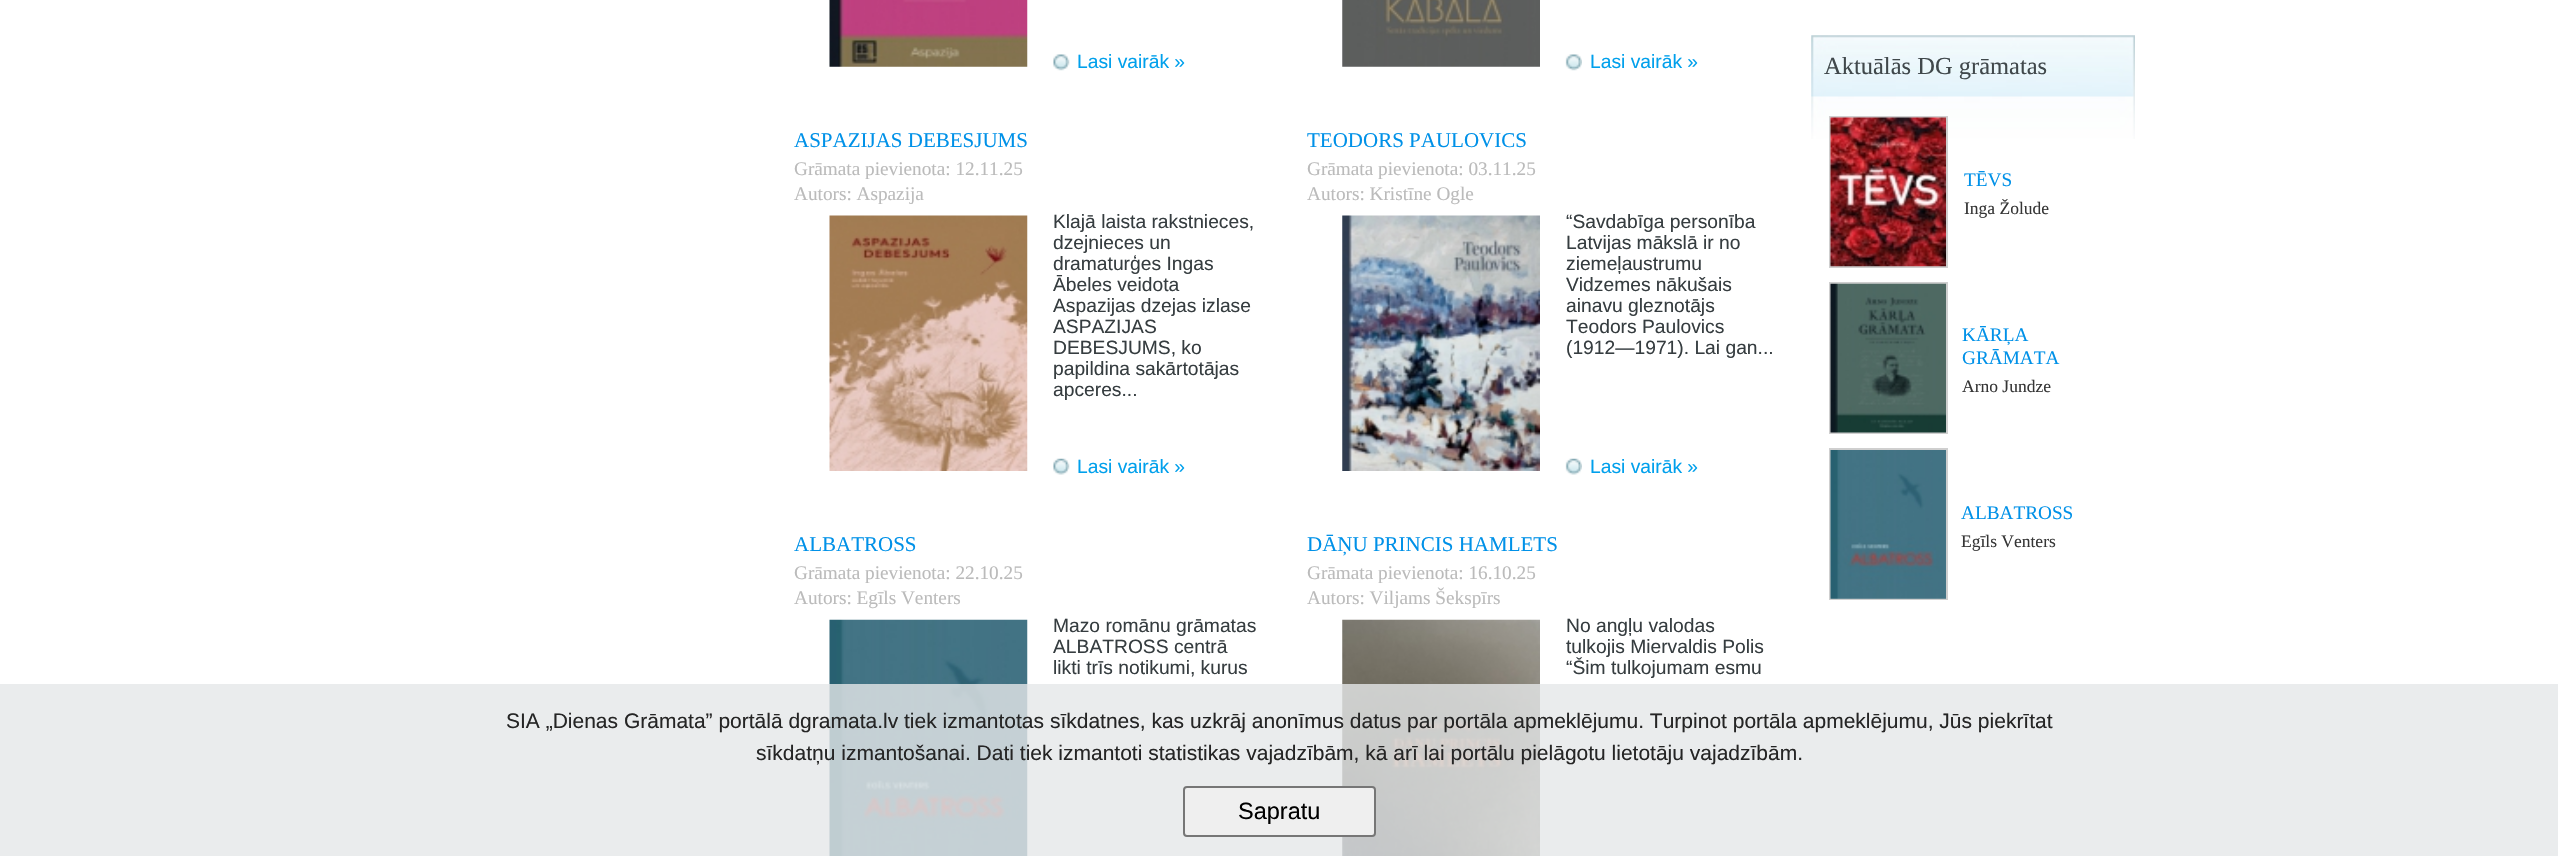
void draw(SkCanvas* canvas) {
    SkPaint paint;
    paint.setAntiAlias(true);
    auto face = [&](const char* family, int weight, float size, bool italic = false) {
        SkFontStyle style(weight, SkFontStyle::kNormal_Width,
            italic ? SkFontStyle::kItalic_Slant : SkFontStyle::kUpright_Slant);
        SkFont result(fontMgr->matchFamilyStyle(family, style), size);
        result.setSubpixel(true);
        return result;
    };
    auto write = [&](const char* s, float x, float y, const SkFont& font, SkColor color) {
        SkPaint ink(SkColor4f::FromColor(color));
        ink.setAntiAlias(true);
        canvas->drawString(s, x, y, font, ink);
    };
    auto block = [&](float x, float y, float w, float h, SkColor color) {
        SkPaint ink(SkColor4f::FromColor(color));
        ink.setAntiAlias(true);
        canvas->drawRect(SkRect::MakeXYWH(x, y, w, h), ink);
    };
    auto paste = [&](const char* path, float x, float y, float w, float h) {
        auto image = SkImages::DeferredFromEncodedData(SkData::MakeFromFileName(path));
        canvas->drawImageRect(image, SkRect::MakeXYWH(x, y, w, h), SkSamplingOptions());
    };
    canvas->clear(SK_ColorWHITE);
    paste("pic1.png", 829, 0, 199, 67);
    paste("pic2.png", 1053, 54, 17, 17);
    auto kFont1 = face("Liberation Sans", 400, 19.25f);
    write("Lasi vairāk »", 1077, 68, kFont1, SkColorSetRGB(0, 160, 236));
    paste("pic3.png", 1342, 0, 198, 67);
    paste("pic4.png", 1565, 54, 17, 17);
    write("Lasi vairāk »", 1590, 68, kFont1, SkColorSetRGB(0, 160, 236));
    auto kFont2 = face("Liberation Serif", 400, 21);
    write("ASPAZIJAS DEBESJUMS", 794, 147, kFont2, SkColorSetRGB(0, 145, 232));
    auto kFont3 = face("Liberation Serif", 400, 19.25f);
    write("Grāmata pievienota: 12.11.25", 794, 175, kFont3, SkColorSetRGB(187, 187, 187));
    write("Autors: Aspazija", 794, 200, kFont3, SkColorSetRGB(187, 187, 187));
    paste("pic5.png", 829, 215, 199, 256);
    write("Klajā laista rakstnieces,", 1053, 228, kFont1, SkColorSetRGB(54, 61, 64));
    write("dzejnieces un", 1053, 249, kFont1, SkColorSetRGB(54, 61, 64));
    write("dramaturģes Ingas", 1053, 270, kFont1, SkColorSetRGB(54, 61, 64));
    write("Ābeles veidota", 1053, 291, kFont1, SkColorSetRGB(54, 61, 64));
    write("Aspazijas dzejas izlase", 1053, 312, kFont1, SkColorSetRGB(54, 61, 64));
    write("ASPAZIJAS", 1053, 333, kFont1, SkColorSetRGB(54, 61, 64));
    write("DEBESJUMS, ko", 1053, 354, kFont1, SkColorSetRGB(54, 61, 64));
    write("papildina sakārtotājas", 1053, 375, kFont1, SkColorSetRGB(54, 61, 64));
    write("apceres...", 1053, 396, kFont1, SkColorSetRGB(54, 61, 64));
    paste("pic6.png", 1053, 458, 17, 17);
    write("Lasi vairāk »", 1077, 473, kFont1, SkColorSetRGB(0, 160, 236));
    write("TEODORS PAULOVICS", 1307, 147, kFont2, SkColorSetRGB(0, 145, 232));
    write("Grāmata pievienota: 03.11.25", 1307, 175, kFont3, SkColorSetRGB(187, 187, 187));
    write("Autors: Kristīne Ogle", 1307, 200, kFont3, SkColorSetRGB(187, 187, 187));
    paste("pic7.png", 1342, 215, 198, 256);
    write("“Savdabīga personība", 1566, 228, kFont1, SkColorSetRGB(54, 61, 64));
    write("Latvijas mākslā ir no", 1566, 249, kFont1, SkColorSetRGB(54, 61, 64));
    write("ziemeļaustrumu", 1566, 270, kFont1, SkColorSetRGB(54, 61, 64));
    write("Vidzemes nākušais", 1566, 291, kFont1, SkColorSetRGB(54, 61, 64));
    write("ainavu gleznotājs", 1566, 312, kFont1, SkColorSetRGB(54, 61, 64));
    write("Teodors Paulovics", 1566, 333, kFont1, SkColorSetRGB(54, 61, 64));
    write("(1912—1971). Lai gan...", 1566, 354, kFont1, SkColorSetRGB(54, 61, 64));
    paste("pic8.png", 1565, 458, 17, 17);
    write("Lasi vairāk »", 1590, 473, kFont1, SkColorSetRGB(0, 160, 236));
    write("ALBATROSS", 794, 551, kFont2, SkColorSetRGB(0, 145, 232));
    write("Grāmata pievienota: 22.10.25", 794, 579, kFont3, SkColorSetRGB(187, 187, 187));
    write("Autors: Egīls Venters", 794, 604, kFont3, SkColorSetRGB(187, 187, 187));
    paste("pic9.png", 829, 619, 199, 237);
    write("Mazo romānu grāmatas", 1053, 632, kFont1, SkColorSetRGB(54, 61, 64));
    write("ALBATROSS centrā", 1053, 653, kFont1, SkColorSetRGB(54, 61, 64));
    write("likti trīs notikumi, kurus", 1053, 674, kFont1, SkColorSetRGB(54, 61, 64));
    write("DĀŅU PRINCIS HAMLETS", 1307, 551, kFont2, SkColorSetRGB(0, 145, 232));
    write("Grāmata pievienota: 16.10.25", 1307, 579, kFont3, SkColorSetRGB(187, 187, 187));
    write("Autors: Viljams Šekspīrs", 1307, 604, kFont3, SkColorSetRGB(187, 187, 187));
    paste("pic10.png", 1342, 619, 198, 237);
    write("No angļu valodas", 1566, 632, kFont1, SkColorSetRGB(54, 61, 64));
    write("tulkojis Miervaldis Polis", 1566, 653, kFont1, SkColorSetRGB(54, 61, 64));
    write("“Šim tulkojumam esmu", 1566, 674, kFont1, SkColorSetRGB(54, 61, 64));
    paste("pic11.png", 1811, 35, 324, 104);
    auto kFont4 = face("Liberation Serif", 400, 24.5f);
    write("Aktuālās DG grāmatas", 1824, 74, kFont4, SkColorSetRGB(64, 72, 75));
    paint.setStyle(SkPaint::kStroke_Style);
    paint.setStrokeWidth(2);
    paint.setColor(SkColorSetRGB(207, 207, 207));
    canvas->drawRect(SkRect::MakeXYWH(1830, 117, 117, 150), paint);
    paste("pic12.png", 1830, 117, 116, 150);
    write("TĒVS", 1964, 186, kFont3, SkColorSetRGB(0, 145, 232));
    auto kFont5 = face("Liberation Serif", 400, 17.5f);
    write("Inga Žolude", 1964, 214, kFont5, SkColorSetRGB(54, 54, 54));
    canvas->drawRect(SkRect::MakeXYWH(1830, 283, 117, 150), paint);
    paste("pic13.png", 1830, 283, 116, 150);
    write("KĀRĻA", 1962, 341, kFont3, SkColorSetRGB(0, 145, 232));
    write("GRĀMATA", 1962, 364, kFont3, SkColorSetRGB(0, 145, 232));
    write("Arno Jundze", 1962, 392, kFont5, SkColorSetRGB(54, 54, 54));
    canvas->drawRect(SkRect::MakeXYWH(1830, 449, 117, 150), paint);
    paste("pic14.png", 1830, 450, 116, 149);
    write("ALBATROSS", 1961, 519, kFont3, SkColorSetRGB(0, 145, 232));
    write("Egīls Venters", 1961, 547, kFont5, SkColorSetRGB(54, 54, 54));
    block(0, 684, 2558, 172, SkColorSetARGB(204, 229, 231, 233));
    auto kFont6 = face("Liberation Sans", 400, 21);
    write("SIA „Dienas Grāmata” portālā dgramata.lv tiek izmantotas sīkdatnes, kas uzkrāj anonīmus datus par portāla apmeklējumu. Turpinot portāla apmeklējumu, Jūs piekrītat", 506, 728, kFont6, SkColorSetRGB(37, 37, 37));
    write("sīkdatņu izmantošanai. Dati tiek izmantoti statistikas vajadzībām, kā arī lai portālu pielāgotu lietotāju vajadzībām.", 756, 760, kFont6, SkColorSetRGB(37, 37, 37));
    paint.setStyle(SkPaint::kFill_Style);
    paint.setColor(SkColorSetRGB(239, 239, 239));
    canvas->drawRoundRect(SkRect::MakeXYWH(1184, 787, 191, 49), 3, 3, paint);
    paint.setStyle(SkPaint::kStroke_Style);
    paint.setColor(SkColorSetRGB(118, 118, 118));
    canvas->drawRoundRect(SkRect::MakeXYWH(1184, 787, 191, 49), 3, 3, paint);
    auto kFont7 = face("Liberation Sans", 400, 23.5f);
    write("Sapratu", 1238, 819, kFont7, SK_ColorBLACK);
}
